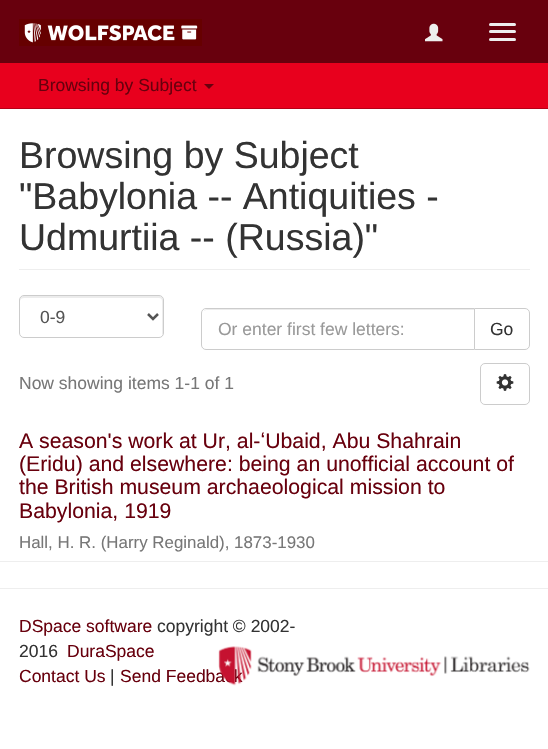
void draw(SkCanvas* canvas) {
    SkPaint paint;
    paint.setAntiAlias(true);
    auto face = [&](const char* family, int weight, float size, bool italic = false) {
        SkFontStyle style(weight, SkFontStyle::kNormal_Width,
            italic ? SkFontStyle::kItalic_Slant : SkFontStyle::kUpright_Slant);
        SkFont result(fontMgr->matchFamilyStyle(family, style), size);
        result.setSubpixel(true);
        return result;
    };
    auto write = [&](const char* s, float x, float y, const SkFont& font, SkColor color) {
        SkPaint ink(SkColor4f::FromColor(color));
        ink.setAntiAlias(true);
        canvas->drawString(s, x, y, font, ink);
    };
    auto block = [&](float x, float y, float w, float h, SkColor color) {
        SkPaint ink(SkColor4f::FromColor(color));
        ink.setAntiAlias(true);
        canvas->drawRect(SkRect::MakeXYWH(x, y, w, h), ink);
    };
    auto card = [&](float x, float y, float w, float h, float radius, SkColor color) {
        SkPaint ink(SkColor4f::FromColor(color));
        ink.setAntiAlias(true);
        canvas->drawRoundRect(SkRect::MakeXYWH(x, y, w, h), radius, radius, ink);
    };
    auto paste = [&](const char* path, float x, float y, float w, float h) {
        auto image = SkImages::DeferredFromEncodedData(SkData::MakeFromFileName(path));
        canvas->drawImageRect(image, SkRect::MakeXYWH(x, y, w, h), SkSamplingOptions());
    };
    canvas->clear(SkColorSetRGB(232, 0, 29));
    block(0, 0, 548, 63, SkColorSetRGB(104, 0, 13));
    paste("pic1.png", 19, 19, 183, 27);
    paste("pic2.png", 425, 23, 18, 19);
    card(489, 23, 27, 3, 1.5f, SkColorSetRGB(238, 238, 238));
    card(489, 30, 27, 3, 1.5f, SkColorSetRGB(238, 238, 238));
    card(489, 38, 27, 3, 1.5f, SkColorSetRGB(238, 238, 238));
    block(0, 108, 548, 1, SkColorSetRGB(181, 0, 23));
    auto kFont1 = face("Liberation Sans", 400, 17.5f);
    write("Browsing by Subject", 38, 91, kFont1, SkColorSetRGB(104, 0, 13));
    paint.setColor(SkColorSetRGB(104, 0, 13));
    canvas->drawPath(SkPathBuilder().moveTo(204, 84).lineTo(214, 84).lineTo(209, 89).close().detach(), paint);
    block(0, 109, 548, 640, SK_ColorWHITE);
    block(19, 269, 511, 1, SkColorSetRGB(238, 238, 238));
    auto kFont2 = face("Liberation Sans", 400, 37.5f);
    write("Browsing by Subject", 19, 168, kFont2, SkColorSetRGB(51, 51, 51));
    write("\"Babylonia -- Antiquities -", 19, 209, kFont2, SkColorSetRGB(51, 51, 51));
    write("Udmurtiia -- (Russia)\"", 19, 250, kFont2, SkColorSetRGB(51, 51, 51));
    paint.setColor(SkColorSetRGB(236, 236, 236));
    canvas->drawPath(SkPathBuilder().moveTo(24, 298).lineTo(159, 298).cubicTo(161, 298, 162, 299, 162, 301).lineTo(162, 335).cubicTo(163, 334, 163, 333, 163, 332).lineTo(163, 300).cubicTo(163, 298, 161, 296, 159, 296).lineTo(24, 296).cubicTo(22, 296, 20, 298, 20, 300).lineTo(20, 301).cubicTo(20, 299, 22, 298, 24, 298).close().detach(), paint);
    paint.setStyle(SkPaint::kStroke_Style);
    paint.setStrokeWidth(1);
    paint.setColor(SkColorSetRGB(204, 204, 204));
    canvas->drawRoundRect(SkRect::MakeXYWH(19.5f, 295.5f, 144, 42), 4.5f, 4.5f, paint);
    paint.setStrokeWidth(2.5f);
    paint.setColor(SkColorSetRGB(85, 85, 85));
    canvas->drawPath(SkPathBuilder().moveTo(148, 314).lineTo(153, 319).lineTo(158, 314).detach(), paint);
    write("0-9", 40, 323, kFont1, SkColorSetRGB(85, 85, 85));
    paint.setStrokeWidth(1);
    paint.setColor(SkColorSetRGB(204, 204, 204));
    canvas->drawPath(SkPathBuilder().moveTo(474.5f, 308.5f).lineTo(525, 308.5f).cubicTo(527.5f, 308.5f, 529.5f, 310.5f, 529.5f, 313).lineTo(529.5f, 345).cubicTo(529.5f, 347.5f, 527.5f, 349.5f, 525, 349.5f).lineTo(474.5f, 349.5f).close().detach(), paint);
    paint.setStyle(SkPaint::kFill_Style);
    paint.setColor(SK_ColorWHITE);
    canvas->drawPath(SkPathBuilder().moveTo(206, 308).lineTo(475, 308).lineTo(475, 350).lineTo(206, 350).cubicTo(203, 350, 201, 348, 201, 345).lineTo(201, 313).cubicTo(201, 310, 203, 308, 206, 308).close().detach(), paint);
    paint.setColor(SkColorSetRGB(236, 236, 236));
    canvas->drawPath(SkPathBuilder().moveTo(206, 310).lineTo(474, 310).lineTo(474, 309).lineTo(207, 309).cubicTo(206, 309, 204, 310, 204, 311).close().detach(), paint);
    paint.setStyle(SkPaint::kStroke_Style);
    paint.setColor(SkColorSetRGB(204, 204, 204));
    canvas->drawPath(SkPathBuilder().moveTo(206, 308.5f).lineTo(474.5f, 308.5f).lineTo(474.5f, 349.5f).lineTo(206, 349.5f).cubicTo(203.5f, 349.5f, 201.5f, 347.5f, 201.5f, 345).lineTo(201.5f, 313).cubicTo(201.5f, 310.5f, 203.5f, 308.5f, 206, 308.5f).close().detach(), paint);
    write("Or enter first few letters:", 218, 335, kFont1, SkColorSetRGB(153, 153, 153));
    write("Go", 490, 335, kFont1, SkColorSetRGB(51, 51, 51));
    write("Now showing items 1-1 of 1", 19, 389, kFont1, SkColorSetRGB(119, 119, 119));
    canvas->drawRoundRect(SkRect::MakeXYWH(480.5f, 363.5f, 49, 41), 4.5f, 4.5f, paint);
    paste("pic3.png", 496, 374, 18, 17);
    block(0, 561, 548, 1, SkColorSetRGB(238, 238, 238));
    auto kFont3 = face("Liberation Sans", 400, 21.25f);
    write("A season's work at Ur, al-ʻUbaid, Abu Shahrain", 19, 448, kFont3, SkColorSetRGB(104, 0, 13));
    write("(Eridu) and elsewhere: being an unofficial account of", 19, 471, kFont3, SkColorSetRGB(104, 0, 13));
    write("the British museum archaeological mission to", 19, 494, kFont3, SkColorSetRGB(104, 0, 13));
    write("Babylonia, 1919", 19, 518, kFont3, SkColorSetRGB(104, 0, 13));
    auto kFont4 = face("Liberation Sans", 400, 16.9f);
    write("Hall, H. R. (Harry Reginald), 1873-1930", 19, 548, kFont4, SkColorSetRGB(119, 119, 119));
    block(0, 588, 548, 1, SkColorSetRGB(238, 238, 238));
    write("DSpace software", 19, 632, kFont1, SkColorSetRGB(104, 0, 13));
    write("copyright © 2002-", 157, 632, kFont1, SkColorSetRGB(51, 51, 51));
    write("2016", 19, 657, kFont1, SkColorSetRGB(51, 51, 51));
    write("DuraSpace", 67, 657, kFont1, SkColorSetRGB(104, 0, 13));
    write("Contact Us", 19, 682, kFont1, SkColorSetRGB(104, 0, 13));
    write("|", 110, 682, kFont1, SkColorSetRGB(51, 51, 51));
    write("Send Feedback", 120, 682, kFont1, SkColorSetRGB(104, 0, 13));
    paste("pic4.png", 218, 646, 312, 40);
}
